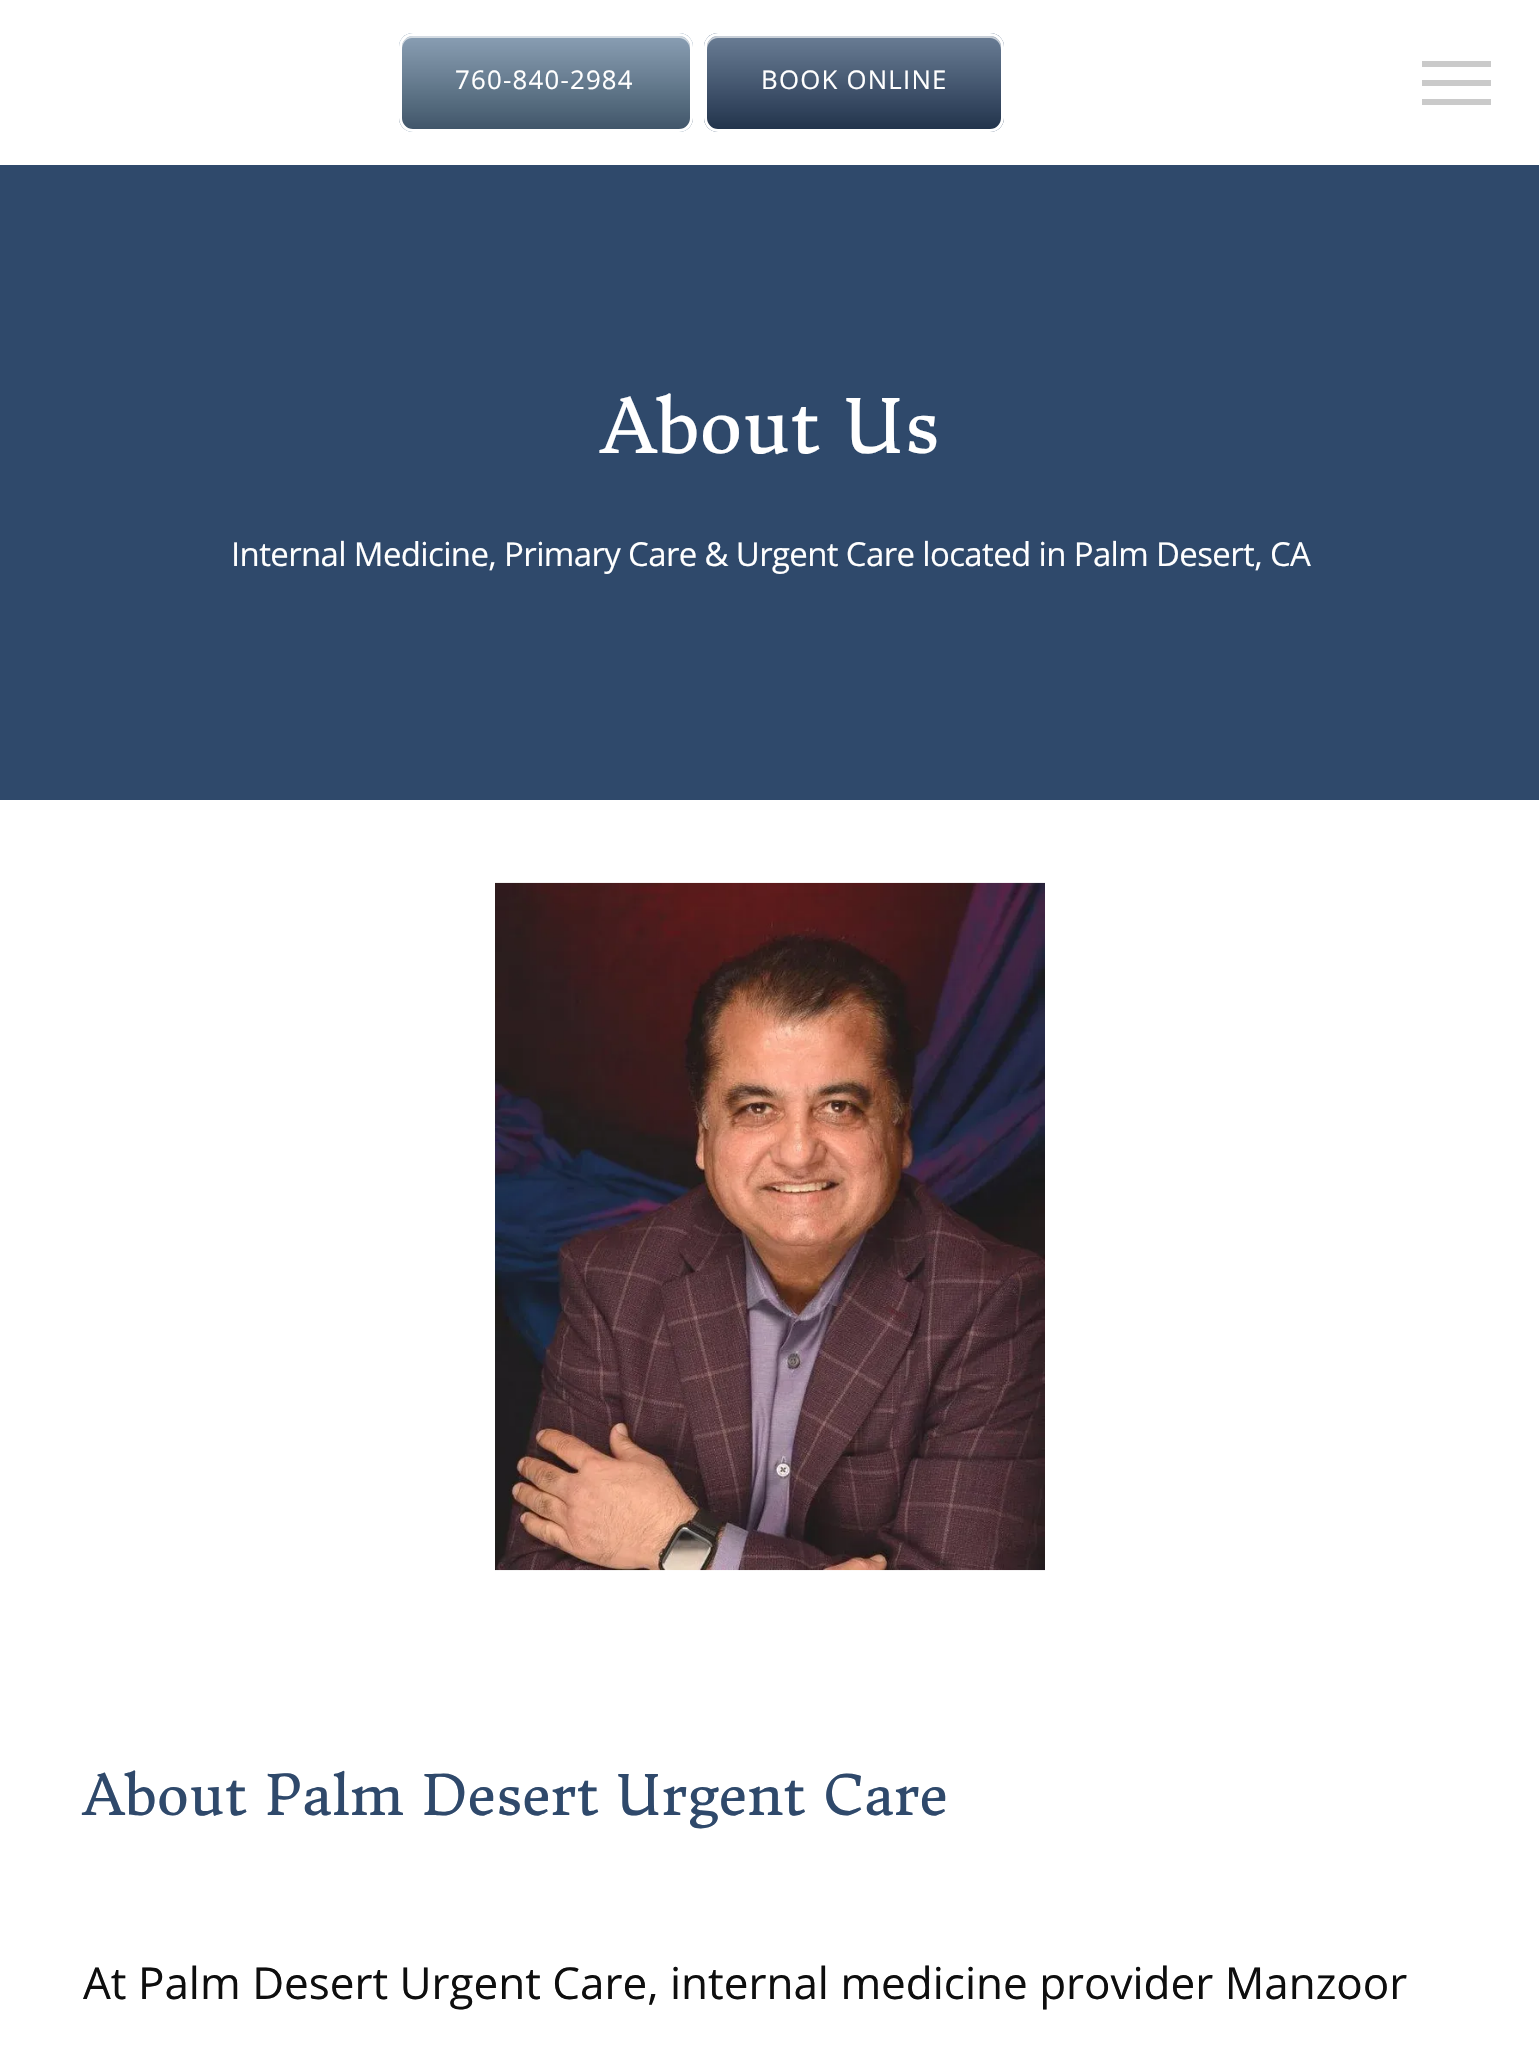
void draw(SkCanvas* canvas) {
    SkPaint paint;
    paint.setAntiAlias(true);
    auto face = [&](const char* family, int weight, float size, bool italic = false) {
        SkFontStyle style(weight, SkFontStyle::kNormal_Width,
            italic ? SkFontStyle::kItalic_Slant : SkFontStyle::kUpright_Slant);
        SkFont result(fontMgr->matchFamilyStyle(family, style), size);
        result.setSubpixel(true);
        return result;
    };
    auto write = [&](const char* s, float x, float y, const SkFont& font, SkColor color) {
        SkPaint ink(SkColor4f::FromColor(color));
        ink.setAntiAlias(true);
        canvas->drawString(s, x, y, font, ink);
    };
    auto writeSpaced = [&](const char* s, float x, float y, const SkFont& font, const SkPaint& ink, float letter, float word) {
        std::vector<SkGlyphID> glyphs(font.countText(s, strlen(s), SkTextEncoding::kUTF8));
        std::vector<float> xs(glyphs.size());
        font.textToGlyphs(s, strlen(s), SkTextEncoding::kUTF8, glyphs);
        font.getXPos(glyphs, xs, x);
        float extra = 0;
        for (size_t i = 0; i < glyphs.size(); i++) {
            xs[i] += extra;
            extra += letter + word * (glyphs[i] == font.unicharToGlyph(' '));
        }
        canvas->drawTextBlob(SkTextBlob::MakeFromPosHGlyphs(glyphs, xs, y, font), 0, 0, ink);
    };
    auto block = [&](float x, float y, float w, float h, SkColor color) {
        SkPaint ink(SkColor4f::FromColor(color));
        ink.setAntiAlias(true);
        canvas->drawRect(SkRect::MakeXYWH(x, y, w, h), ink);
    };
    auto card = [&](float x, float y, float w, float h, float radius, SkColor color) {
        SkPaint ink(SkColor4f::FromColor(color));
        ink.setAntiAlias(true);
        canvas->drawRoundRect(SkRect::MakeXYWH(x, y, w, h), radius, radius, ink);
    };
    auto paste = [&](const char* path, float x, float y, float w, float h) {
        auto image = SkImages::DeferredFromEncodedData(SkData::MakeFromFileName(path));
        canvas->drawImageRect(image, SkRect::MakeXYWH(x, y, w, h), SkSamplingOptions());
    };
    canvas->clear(SK_ColorWHITE);
    card(399, 33, 294, 99, 14, SkColorSetRGB(91, 121, 149));
    canvas->save();
    canvas->clipPath(SkPathBuilder().moveTo(413, 33).lineTo(679, 33).cubicTo(686.5f, 33, 693, 39.5f, 693, 47).lineTo(693, 118).cubicTo(693, 125.5f, 686.5f, 132, 679, 132).lineTo(413, 132).cubicTo(405.5f, 132, 399, 125.5f, 399, 118).lineTo(399, 47).cubicTo(399, 39.5f, 405.5f, 33, 413, 33).close().detach(), true);
    {
        const SkColor colors[] = {SkColorSetARGB(74, 0, 0, 0), SkColorSetARGB(71, 255, 255, 255)};
        const float stops[] = {0, 1};
        const SkPoint ends[] = {{402, 129}, {402, 36}};
        paint.setShader(SkGradientShader::MakeLinear(ends, colors, stops, 2, SkTileMode::kClamp));
        paint.setAlpha(255);
    }
    canvas->drawRect(SkRect::MakeXYWH(399, 36, 294, 93), paint);
    canvas->restore();
    paint.setShader(nullptr);
    paint.setColor(SkColorSetARGB(163, 253, 253, 253));
    canvas->drawPath(SkPathBuilder().moveTo(412, 38).lineTo(679, 38).cubicTo(685, 38, 690, 43, 690, 50).lineTo(690, 47).cubicTo(690, 41, 685, 36, 679, 36).lineTo(413, 36).cubicTo(407, 36, 402, 41, 402, 47).lineTo(402, 50).cubicTo(402, 43, 406, 38, 412, 38).close().detach(), paint);
    paint.setStyle(SkPaint::kStroke_Style);
    paint.setStrokeWidth(3);
    paint.setColor(SK_ColorWHITE);
    canvas->drawRoundRect(SkRect::MakeXYWH(400.5f, 34.5f, 291, 96), 12.5f, 12.5f, paint);
    auto kFont1 = face("Open Sans", 400, 25.75f);
    paint.setStyle(SkPaint::kFill_Style);
    writeSpaced("760-840-2984", 455, 89, kFont1, paint, 1.25f, 0);
    card(704, 33, 300, 99, 14, SkColorSetRGB(47, 73, 107));
    canvas->save();
    canvas->clipPath(SkPathBuilder().moveTo(718, 33).lineTo(990, 33).cubicTo(997.5f, 33, 1004, 39.5f, 1004, 47).lineTo(1004, 118).cubicTo(1004, 125.5f, 997.5f, 132, 990, 132).lineTo(718, 132).cubicTo(710.5f, 132, 704, 125.5f, 704, 118).lineTo(704, 47).cubicTo(704, 39.5f, 710.5f, 33, 718, 33).close().detach(), true);
    {
        const SkColor colors[] = {SkColorSetARGB(74, 0, 0, 0), SkColorSetARGB(71, 255, 255, 255)};
        const float stops[] = {0, 1};
        const SkPoint ends[] = {{707, 129}, {707, 36}};
        paint.setShader(SkGradientShader::MakeLinear(ends, colors, stops, 2, SkTileMode::kClamp));
        paint.setAlpha(255);
    }
    canvas->drawRect(SkRect::MakeXYWH(704, 36, 300, 93), paint);
    canvas->restore();
    paint.setShader(nullptr);
    paint.setColor(SkColorSetARGB(163, 253, 253, 253));
    canvas->drawPath(SkPathBuilder().moveTo(718, 38).lineTo(990, 38).cubicTo(996, 38, 1001, 43, 1001, 50).lineTo(1001, 47).cubicTo(1001, 41, 996, 36, 990, 36).lineTo(718, 36).cubicTo(712, 36, 707, 41, 707, 47).lineTo(707, 50).cubicTo(707, 43, 712, 38, 718, 38).close().detach(), paint);
    paint.setStyle(SkPaint::kStroke_Style);
    paint.setColor(SK_ColorWHITE);
    canvas->drawRoundRect(SkRect::MakeXYWH(705.5f, 34.5f, 297, 96), 12.5f, 12.5f, paint);
    paint.setStyle(SkPaint::kFill_Style);
    writeSpaced("BOOK ONLINE", 761, 89, kFont1, paint, 1.25f, 0);
    block(1422, 61, 69, 6, SkColorSetRGB(202, 202, 202));
    block(1422, 99, 69, 6, SkColorSetRGB(202, 202, 202));
    block(1422, 80, 69, 6, SkColorSetRGB(202, 202, 202));
    block(0, 165, 1539, 635, SkColorSetRGB(47, 73, 107));
    auto kFont2 = face("Donegal One", 400, 73.5f);
    write("About Us", 601, 453, kFont2, SK_ColorWHITE);
    auto kFont3 = face("Open Sans", 400, 33);
    writeSpaced("Internal Medicine, Primary Care & Urgent Care located in Palm Desert, CA", 231, 566, kFont3, paint, -0.65f, 0);
    paste("pic1.png", 495, 882, 550, 689);
    auto kFont4 = face("Donegal One", 400, 55);
    write("About Palm Desert Urgent Care", 83, 1815, kFont4, SkColorSetRGB(47, 73, 107));
    auto kFont5 = face("Open Sans", 400, 44);
    write("At Palm Desert Urgent Care, internal medicine provider Manzoor", 83, 1999, kFont5, SkColorSetRGB(14, 14, 14));
}
